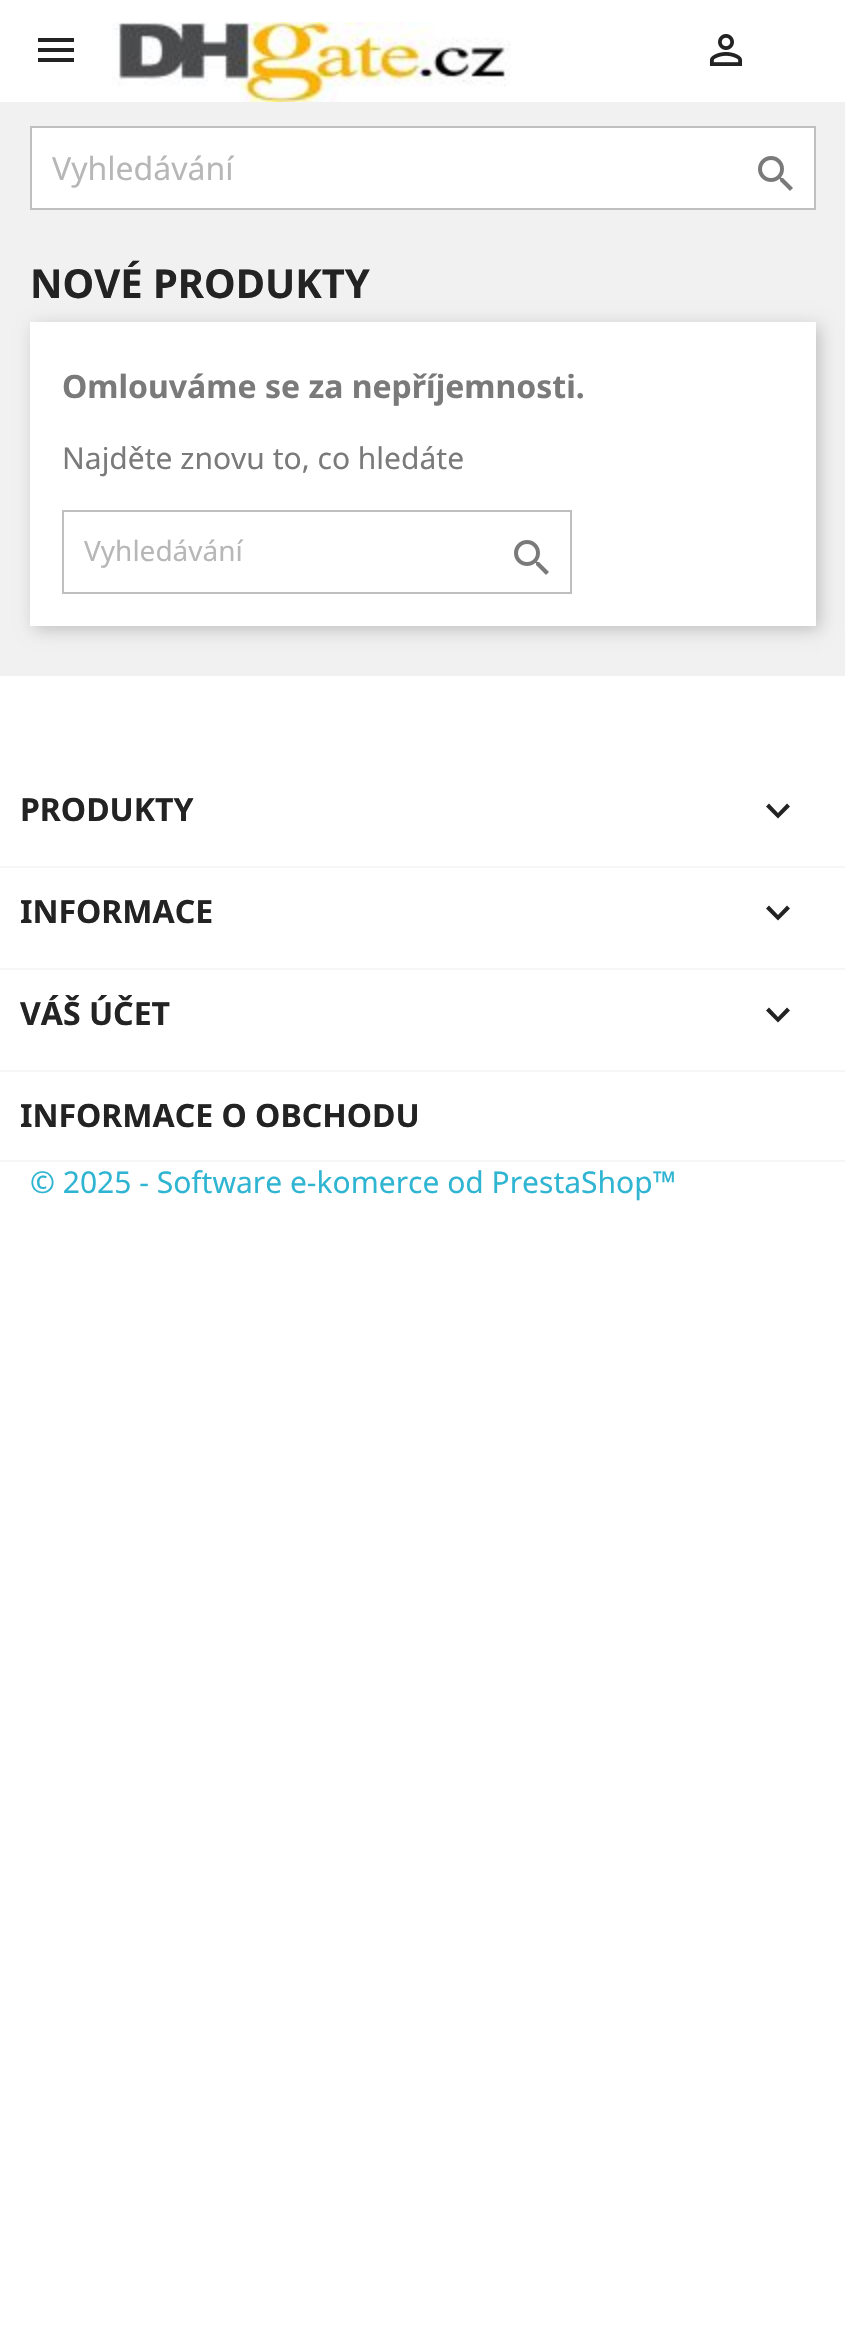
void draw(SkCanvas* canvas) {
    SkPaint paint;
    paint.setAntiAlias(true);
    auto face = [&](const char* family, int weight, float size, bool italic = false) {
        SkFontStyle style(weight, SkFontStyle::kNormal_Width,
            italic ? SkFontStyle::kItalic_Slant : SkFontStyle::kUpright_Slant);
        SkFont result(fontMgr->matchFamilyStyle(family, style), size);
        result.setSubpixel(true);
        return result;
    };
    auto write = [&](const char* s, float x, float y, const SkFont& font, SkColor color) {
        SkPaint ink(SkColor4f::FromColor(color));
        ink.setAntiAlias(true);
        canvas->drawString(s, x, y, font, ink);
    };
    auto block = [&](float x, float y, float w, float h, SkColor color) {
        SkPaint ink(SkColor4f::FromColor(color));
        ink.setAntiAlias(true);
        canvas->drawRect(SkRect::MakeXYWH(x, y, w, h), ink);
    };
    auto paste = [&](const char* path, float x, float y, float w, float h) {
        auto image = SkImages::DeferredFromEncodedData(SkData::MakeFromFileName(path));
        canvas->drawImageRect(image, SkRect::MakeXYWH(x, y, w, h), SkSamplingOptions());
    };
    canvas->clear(SK_ColorWHITE);
    block(0, 102, 845, 574, SkColorSetRGB(241, 241, 241));
    paint.setColor(SkColorSetRGB(35, 35, 35));
    canvas->drawPath(SkPathBuilder().moveTo(38, 38).lineTo(74, 38).lineTo(74, 42).lineTo(38, 42).close().moveTo(38, 52).lineTo(38, 48).lineTo(74, 48).lineTo(74, 52).close().moveTo(38, 62).lineTo(38, 58).lineTo(74, 58).lineTo(74, 62).close().detach(), paint);
    paste("pic1.png", 112, 22, 399, 80);
    paste("pic2.png", 709, 34, 34, 32);
    paint.setColor(SK_ColorWHITE);
    canvas->drawRect(SkRect::MakeXYWH(31, 127, 784, 82), paint);
    paint.setStyle(SkPaint::kStroke_Style);
    paint.setStrokeWidth(2);
    paint.setColor(SkColorSetRGB(191, 191, 191));
    canvas->drawRect(SkRect::MakeXYWH(31, 127, 784, 82), paint);
    auto kFont1 = face("Noto Sans", 400, 32);
    write("Vyhledávání", 52, 180, kFont1, SkColorSetRGB(183, 183, 183));
    paste("pic3.png", 758, 156, 35, 35);
    auto kFont2 = face("Noto Sans", 700, 40);
    write("NOVÉ PRODUKTY", 30, 298, kFont2, SkColorSetRGB(35, 35, 35));
    paint.setStyle(SkPaint::kFill_Style);
    paint.setColor(SkColorSetARGB(51, 0, 0, 0));
    paint.setMaskFilter(SkMaskFilter::MakeBlur(kNormal_SkBlurStyle, 8));
    canvas->drawRect(SkRect::MakeXYWH(34, 326, 786, 304), paint);
    paint.setMaskFilter(nullptr);
    block(30, 322, 786, 304, SK_ColorWHITE);
    auto kFont3 = face("Noto Sans", 700, 32);
    write("Omlouváme se za nepříjemnosti.", 62, 398, kFont3, SkColorSetRGB(122, 122, 122));
    auto kFont4 = face("Noto Sans", 400, 30);
    write("Najděte znovu to, co hledáte", 62, 469, kFont4, SkColorSetRGB(122, 122, 122));
    paint.setStyle(SkPaint::kStroke_Style);
    paint.setColor(SkColorSetRGB(191, 191, 191));
    canvas->drawRect(SkRect::MakeXYWH(63, 511, 508, 82), paint);
    auto kFont5 = face("Noto Sans", 400, 28);
    write("Vyhledávání", 84, 561, kFont5, SkColorSetRGB(183, 183, 183));
    paste("pic3.png", 514, 540, 35, 35);
    block(0, 866, 845, 2, SkColorSetRGB(246, 246, 246));
    write("PRODUKTY", 20, 821, kFont3, SkColorSetRGB(35, 35, 35));
    paint.setStyle(SkPaint::kFill_Style);
    paint.setColor(SkColorSetRGB(35, 35, 35));
    canvas->drawPath(SkPathBuilder().moveTo(769, 803.5f).lineTo(778, 813).lineTo(787, 803.5f).lineTo(790, 806.5f).lineTo(778, 818.5f).lineTo(766, 806.5f).close().detach(), paint);
    block(0, 968, 845, 2, SkColorSetRGB(246, 246, 246));
    write("INFORMACE", 20, 923, kFont3, SkColorSetRGB(35, 35, 35));
    canvas->drawPath(SkPathBuilder().moveTo(769, 905.5f).lineTo(778, 915).lineTo(787, 905.5f).lineTo(790, 908.5f).lineTo(778, 920.5f).lineTo(766, 908.5f).close().detach(), paint);
    block(0, 1070, 845, 2, SkColorSetRGB(246, 246, 246));
    write("VÁŠ ÚČET", 20, 1025, kFont3, SkColorSetRGB(35, 35, 35));
    canvas->drawPath(SkPathBuilder().moveTo(769, 1007.5f).lineTo(778, 1017).lineTo(787, 1007.5f).lineTo(790, 1010.5f).lineTo(778, 1022.5f).lineTo(766, 1010.5f).close().detach(), paint);
    block(0, 1160, 845, 2, SkColorSetRGB(246, 246, 246));
    write("INFORMACE O OBCHODU", 20, 1127, kFont3, SkColorSetRGB(35, 35, 35));
    write("© 2025 - Software e-komerce od PrestaShop™", 30, 1193, kFont4, SkColorSetRGB(47, 181, 210));
}
